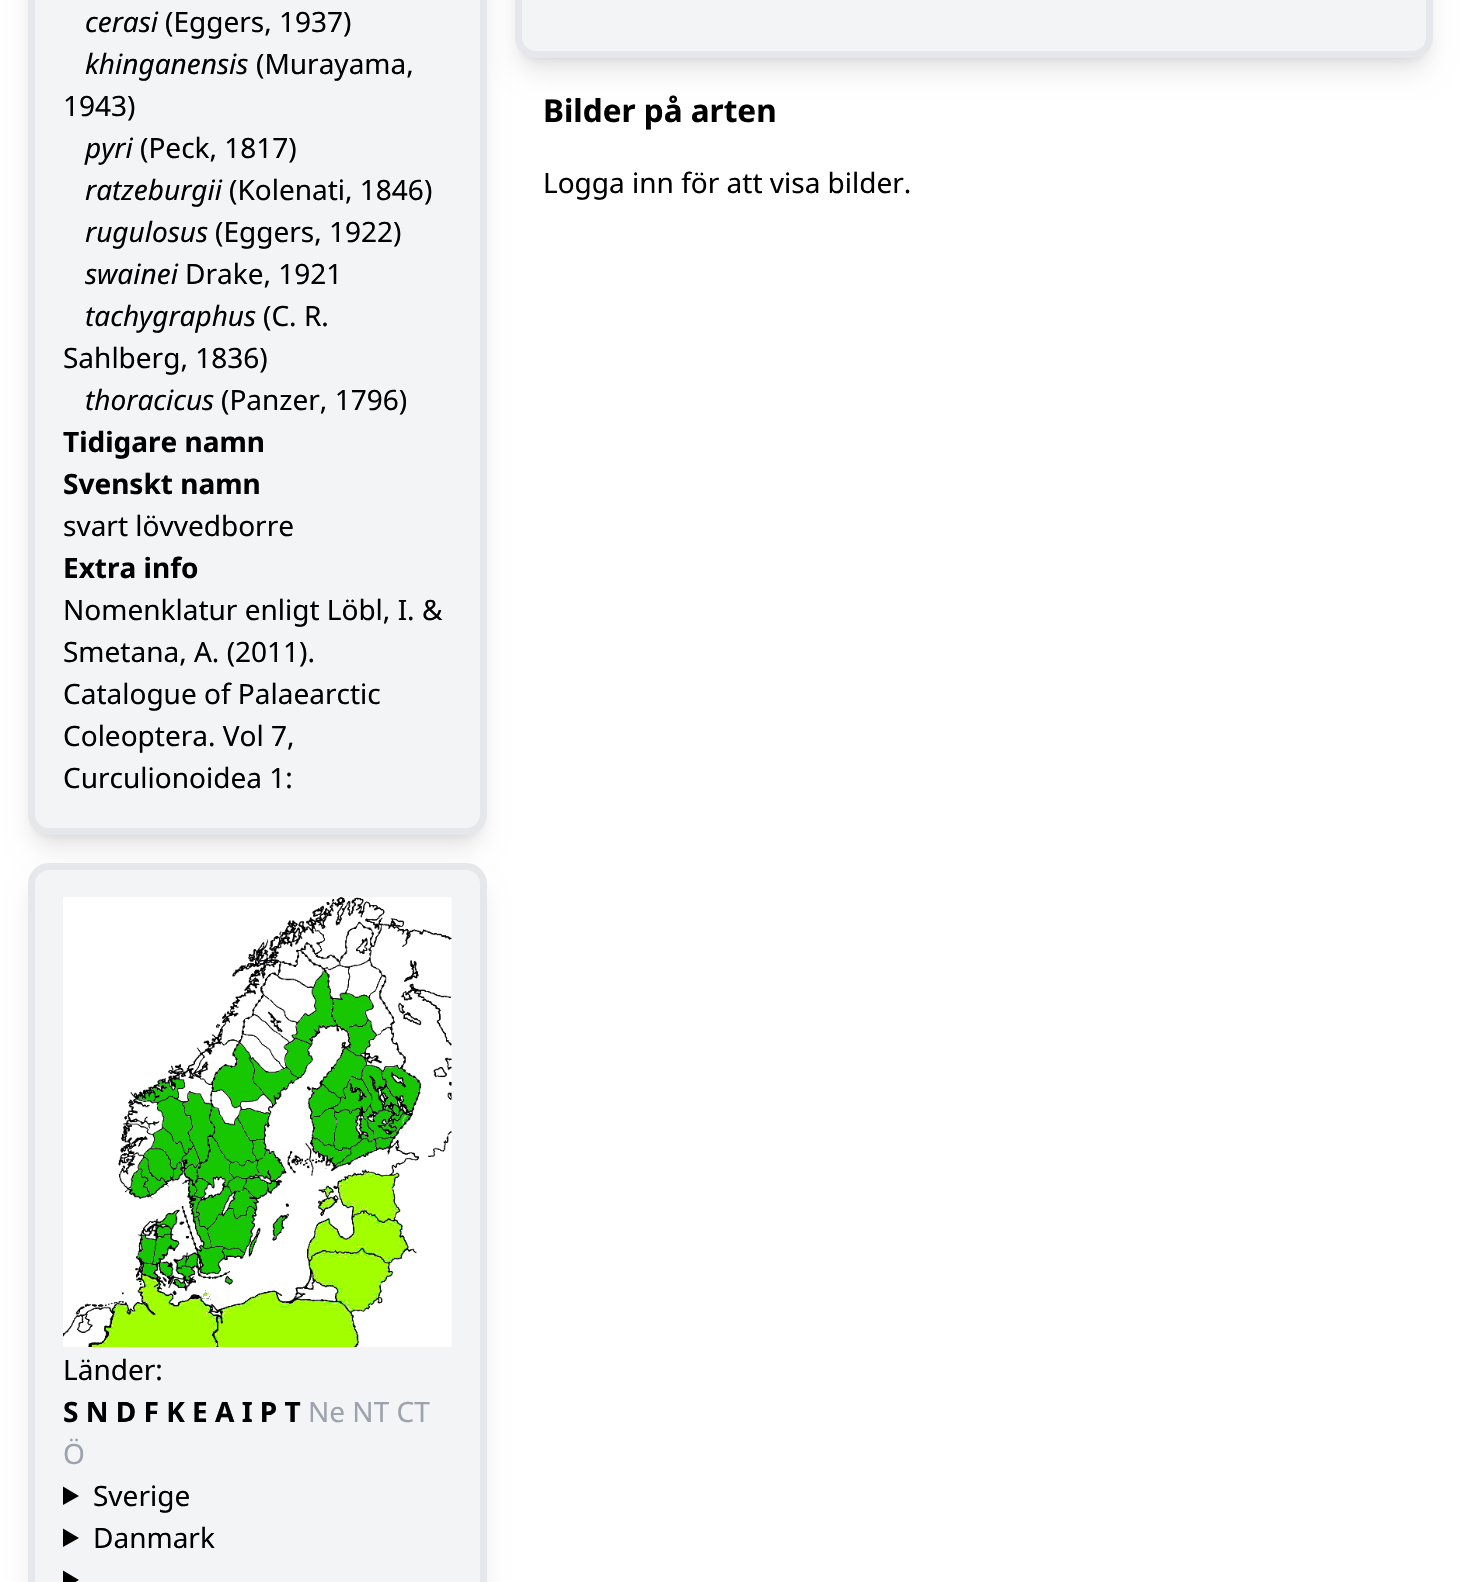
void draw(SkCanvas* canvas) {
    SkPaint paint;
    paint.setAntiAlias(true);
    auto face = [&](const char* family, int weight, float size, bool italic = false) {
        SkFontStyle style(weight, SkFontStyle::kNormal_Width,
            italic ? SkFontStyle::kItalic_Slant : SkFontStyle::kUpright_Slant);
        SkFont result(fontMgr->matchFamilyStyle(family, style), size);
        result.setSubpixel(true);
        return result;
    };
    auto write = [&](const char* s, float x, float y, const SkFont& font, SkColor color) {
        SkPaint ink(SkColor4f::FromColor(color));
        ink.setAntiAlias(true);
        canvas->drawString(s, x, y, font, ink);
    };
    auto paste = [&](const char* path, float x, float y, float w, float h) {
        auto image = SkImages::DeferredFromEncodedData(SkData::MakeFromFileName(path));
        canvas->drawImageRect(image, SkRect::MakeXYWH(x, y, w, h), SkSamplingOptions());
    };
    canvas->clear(SK_ColorWHITE);
    paint.setColor(SkColorSetARGB(26, 0, 0, 0));
    paint.setMaskFilter(SkMaskFilter::MakeBlur(kNormal_SkBlurStyle, 5));
    canvas->drawRoundRect(SkRect::MakeXYWH(35, -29, 445, 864), 14, 14, paint);
    paint.setMaskFilter(nullptr);
    paint.setMaskFilter(SkMaskFilter::MakeBlur(kNormal_SkBlurStyle, 13));
    canvas->drawRoundRect(SkRect::MakeXYWH(33, -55, 448, 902), 16, 16, paint);
    paint.setMaskFilter(nullptr);
    paint.setColor(SkColorSetRGB(243, 244, 246));
    canvas->drawRoundRect(SkRect::MakeXYWH(31.5f, -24.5f, 452, 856), 17.5f, 17.5f, paint);
    paint.setStyle(SkPaint::kStroke_Style);
    paint.setStrokeWidth(7);
    paint.setColor(SkColorSetRGB(229, 231, 235));
    canvas->drawRoundRect(SkRect::MakeXYWH(31.5f, -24.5f, 452, 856), 17.5f, 17.5f, paint);
    auto kFont1 = face("Noto Sans", 400, 28, true);
    write("cerasi", 85, 32, kFont1, SK_ColorBLACK);
    auto kFont2 = face("Noto Sans", 400, 28);
    write("(Eggers, 1937)", 165, 32, kFont2, SK_ColorBLACK);
    write("khinganensis", 85, 74, kFont1, SK_ColorBLACK);
    write("(Murayama,", 256, 74, kFont2, SK_ColorBLACK);
    write("1943)", 63, 116, kFont2, SK_ColorBLACK);
    write("pyri", 85, 158, kFont1, SK_ColorBLACK);
    write("(Peck, 1817)", 140, 158, kFont2, SK_ColorBLACK);
    write("ratzeburgii", 85, 200, kFont1, SK_ColorBLACK);
    write("(Kolenati, 1846)", 229, 200, kFont2, SK_ColorBLACK);
    write("rugulosus", 85, 242, kFont1, SK_ColorBLACK);
    write("(Eggers, 1922)", 215, 242, kFont2, SK_ColorBLACK);
    write("swainei", 85, 284, kFont1, SK_ColorBLACK);
    write("Drake, 1921", 185, 284, kFont2, SK_ColorBLACK);
    write("tachygraphus", 85, 326, kFont1, SK_ColorBLACK);
    write("(C. R.", 263, 326, kFont2, SK_ColorBLACK);
    write("Sahlberg, 1836)", 63, 368, kFont2, SK_ColorBLACK);
    write("thoracicus", 85, 410, kFont1, SK_ColorBLACK);
    write("(Panzer, 1796)", 221, 410, kFont2, SK_ColorBLACK);
    auto kFont3 = face("Noto Sans", 700, 28);
    write("Tidigare namn", 63, 452, kFont3, SK_ColorBLACK);
    write("Svenskt namn", 63, 494, kFont3, SK_ColorBLACK);
    write("svart lövvedborre", 63, 536, kFont2, SK_ColorBLACK);
    write("Extra info", 63, 578, kFont3, SK_ColorBLACK);
    write("Nomenklatur enligt Löbl, I. &", 63, 620, kFont2, SK_ColorBLACK);
    write("Smetana, A. (2011).", 63, 662, kFont2, SK_ColorBLACK);
    write("Catalogue of Palaearctic", 63, 704, kFont2, SK_ColorBLACK);
    write("Coleoptera. Vol 7,", 63, 746, kFont2, SK_ColorBLACK);
    write("Curculionoidea 1:", 63, 788, kFont2, SK_ColorBLACK);
    paint.setStyle(SkPaint::kFill_Style);
    paint.setColor(SkColorSetARGB(26, 0, 0, 0));
    paint.setMaskFilter(SkMaskFilter::MakeBlur(kNormal_SkBlurStyle, 13));
    canvas->drawRoundRect(SkRect::MakeXYWH(33, 886, 448, 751), 16, 16, paint);
    paint.setMaskFilter(nullptr);
    paint.setColor(SkColorSetRGB(243, 244, 246));
    canvas->drawRoundRect(SkRect::MakeXYWH(31.5f, 866.5f, 452, 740), 17.5f, 17.5f, paint);
    paint.setStyle(SkPaint::kStroke_Style);
    paint.setColor(SkColorSetRGB(229, 231, 235));
    canvas->drawRoundRect(SkRect::MakeXYWH(31.5f, 866.5f, 452, 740), 17.5f, 17.5f, paint);
    paste("pic1.png", 63, 897, 389, 450);
    write("Länder:", 63, 1380, kFont2, SK_ColorBLACK);
    write("S N D F K E A I P T", 63, 1422, kFont3, SK_ColorBLACK);
    write("Ne NT CT", 308, 1422, kFont2, SkColorSetRGB(156, 163, 175));
    write("Ö", 63, 1464, kFont2, SkColorSetRGB(156, 163, 175));
    paint.setStyle(SkPaint::kFill_Style);
    paint.setColor(SK_ColorBLACK);
    canvas->drawPath(SkPathBuilder().moveTo(63, 1486.5f).lineTo(79, 1496).lineTo(63, 1505).close().detach(), paint);
    write("Sverige", 93, 1506, kFont2, SK_ColorBLACK);
    canvas->drawPath(SkPathBuilder().moveTo(63, 1528.5f).lineTo(79, 1538).lineTo(63, 1547).close().detach(), paint);
    write("Danmark", 93, 1548, kFont2, SK_ColorBLACK);
    canvas->drawPath(SkPathBuilder().moveTo(63, 1570.5f).lineTo(79, 1580).lineTo(63, 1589).close().detach(), paint);
    paint.setColor(SkColorSetARGB(26, 0, 0, 0));
    paint.setMaskFilter(SkMaskFilter::MakeBlur(kNormal_SkBlurStyle, 5));
    canvas->drawRoundRect(SkRect::MakeXYWH(522, -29, 904, 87), 14, 14, paint);
    paint.setMaskFilter(nullptr);
    paint.setMaskFilter(SkMaskFilter::MakeBlur(kNormal_SkBlurStyle, 13));
    canvas->drawRoundRect(SkRect::MakeXYWH(520, -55, 908, 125), 16, 16, paint);
    paint.setMaskFilter(nullptr);
    paint.setColor(SkColorSetRGB(243, 244, 246));
    canvas->drawRoundRect(SkRect::MakeXYWH(518.5f, -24.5f, 911, 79), 17.5f, 17.5f, paint);
    paint.setStyle(SkPaint::kStroke_Style);
    paint.setColor(SkColorSetRGB(229, 231, 235));
    canvas->drawRoundRect(SkRect::MakeXYWH(518.5f, -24.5f, 911, 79), 17.5f, 17.5f, paint);
    auto kFont4 = face("Noto Sans", 700, 31.5f);
    write("Bilder på arten", 543, 122, kFont4, SK_ColorBLACK);
    write("Logga inn för att visa bilder.", 543, 193, kFont2, SK_ColorBLACK);
}
